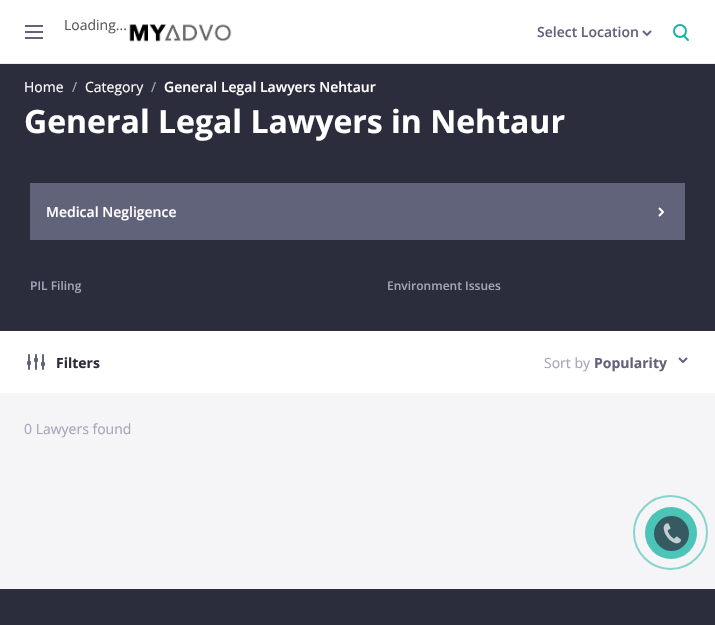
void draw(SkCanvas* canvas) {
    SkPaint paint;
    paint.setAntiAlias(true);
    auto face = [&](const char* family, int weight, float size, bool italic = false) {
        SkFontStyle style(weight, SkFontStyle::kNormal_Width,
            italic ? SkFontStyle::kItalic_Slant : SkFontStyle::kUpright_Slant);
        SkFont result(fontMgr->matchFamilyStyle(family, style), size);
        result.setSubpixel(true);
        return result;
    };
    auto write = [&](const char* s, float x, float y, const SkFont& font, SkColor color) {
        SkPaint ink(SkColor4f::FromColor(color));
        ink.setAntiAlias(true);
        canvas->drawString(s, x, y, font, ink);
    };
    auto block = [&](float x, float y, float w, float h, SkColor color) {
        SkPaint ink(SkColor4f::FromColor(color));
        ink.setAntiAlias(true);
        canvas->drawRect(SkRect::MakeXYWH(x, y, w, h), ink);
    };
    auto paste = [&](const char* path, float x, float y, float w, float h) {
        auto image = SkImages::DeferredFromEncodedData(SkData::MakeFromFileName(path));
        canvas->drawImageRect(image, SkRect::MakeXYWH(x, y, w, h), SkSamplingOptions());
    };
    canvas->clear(SK_ColorWHITE);
    block(0, 63, 715, 1, SkColorSetRGB(236, 236, 236));
    paste("pic1.png", 25, 25, 18, 14);
    auto kFont1 = face("Open Sans", 400, 14);
    write("Loading...", 64, 30, kFont1, SkColorSetRGB(89, 89, 89));
    paste("pic2.png", 129, 24, 103, 18);
    auto kFont2 = face("Open Sans", 600, 14);
    write("Select Location", 537, 37, kFont2, SkColorSetRGB(96, 99, 121));
    paste("pic3.png", 642, 30, 10, 7);
    paint.setStyle(SkPaint::kStroke_Style);
    paint.setStrokeWidth(2);
    paint.setColor(SkColorSetRGB(21, 180, 163));
    canvas->drawCircle(680, 31, 6, paint);
    paint.setStrokeCap(SkPaint::kRound_Cap);
    canvas->drawPath(SkPathBuilder().moveTo(684.5f, 36.5f).lineTo(688, 40).detach(), paint);
    block(0, 64, 715, 267, SkColorSetRGB(43, 45, 60));
    write("Home", 24, 92, kFont1, SK_ColorWHITE);
    write("/", 72, 92, kFont1, SkColorSetRGB(170, 171, 177));
    write("Category", 85, 92, kFont1, SK_ColorWHITE);
    write("/", 151, 92, kFont1, SkColorSetRGB(170, 171, 177));
    write("General Legal Lawyers Nehtaur", 164, 92, kFont2, SK_ColorWHITE);
    auto kFont3 = face("Open Sans", 700, 32);
    write("General Legal Lawyers in Nehtaur", 24, 133, kFont3, SK_ColorWHITE);
    block(30, 183, 655, 57, SkColorSetRGB(96, 99, 121));
    write("Medical Negligence", 46, 217, kFont2, SK_ColorWHITE);
    paint.setStrokeCap(SkPaint::kButt_Cap);
    paint.setStrokeJoin(SkPaint::kRound_Join);
    paint.setColor(SK_ColorWHITE);
    canvas->drawPath(SkPathBuilder().moveTo(659, 208).lineTo(663, 212).lineTo(659, 216).detach(), paint);
    auto kFont4 = face("Open Sans", 600, 12);
    write("PIL Filing", 30, 290, kFont4, SkColorSetRGB(162, 165, 184));
    write("Environment Issues", 387, 290, kFont4, SkColorSetRGB(162, 165, 184));
    block(0, 393, 715, 196, SkColorSetRGB(245, 245, 247));
    paste("pic4.png", 27, 354, 18, 16);
    auto kFont5 = face("Open Sans", 700, 14);
    write("Filters", 56, 368, kFont5, SkColorSetRGB(43, 45, 60));
    write("Sort by", 544, 368, kFont1, SkColorSetRGB(162, 165, 184));
    write("Popularity", 594, 368, kFont5, SkColorSetRGB(96, 99, 121));
    paint.setColor(SkColorSetRGB(96, 99, 121));
    canvas->drawPath(SkPathBuilder().moveTo(687, 358).lineTo(683, 362).lineTo(679, 358).detach(), paint);
    write("0 Lawyers found", 24, 434, kFont1, SkColorSetRGB(162, 165, 184));
    paint.setStrokeJoin(SkPaint::kMiter_Join);
    paint.setColor(SkColorSetRGB(133, 213, 205));
    canvas->drawCircle(670.5f, 532.5f, 36.5f, paint);
    paint.setStyle(SkPaint::kFill_Style);
    paint.setColor(SkColorSetRGB(77, 196, 184));
    canvas->drawCircle(671, 533, 26, paint);
    paint.setColor(SkColorSetRGB(53, 90, 97));
    canvas->drawCircle(671.5f, 533.5f, 17.5f, paint);
    paste("pic5.png", 663, 523, 18, 21);
    block(0, 589, 715, 36, SkColorSetRGB(43, 45, 60));
}
